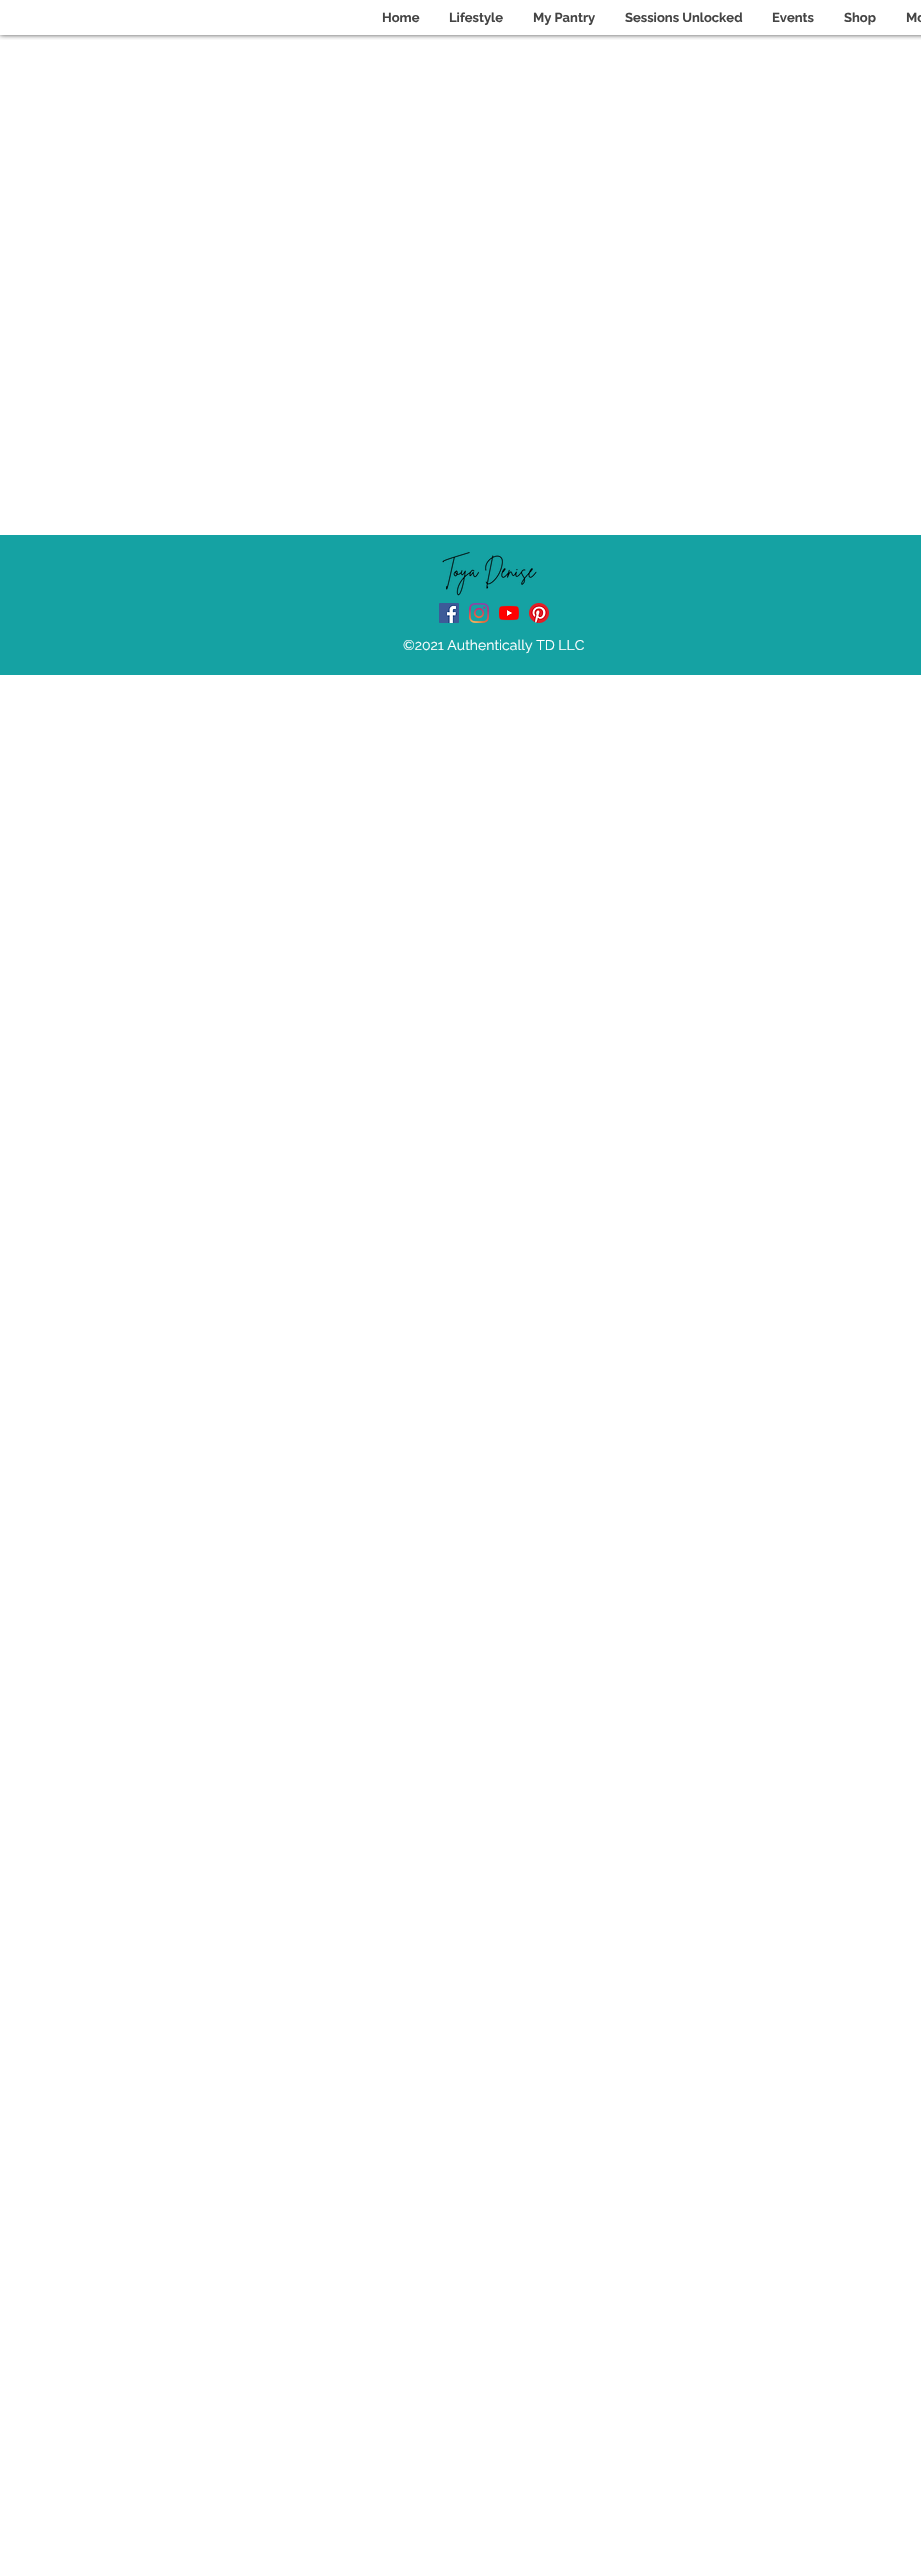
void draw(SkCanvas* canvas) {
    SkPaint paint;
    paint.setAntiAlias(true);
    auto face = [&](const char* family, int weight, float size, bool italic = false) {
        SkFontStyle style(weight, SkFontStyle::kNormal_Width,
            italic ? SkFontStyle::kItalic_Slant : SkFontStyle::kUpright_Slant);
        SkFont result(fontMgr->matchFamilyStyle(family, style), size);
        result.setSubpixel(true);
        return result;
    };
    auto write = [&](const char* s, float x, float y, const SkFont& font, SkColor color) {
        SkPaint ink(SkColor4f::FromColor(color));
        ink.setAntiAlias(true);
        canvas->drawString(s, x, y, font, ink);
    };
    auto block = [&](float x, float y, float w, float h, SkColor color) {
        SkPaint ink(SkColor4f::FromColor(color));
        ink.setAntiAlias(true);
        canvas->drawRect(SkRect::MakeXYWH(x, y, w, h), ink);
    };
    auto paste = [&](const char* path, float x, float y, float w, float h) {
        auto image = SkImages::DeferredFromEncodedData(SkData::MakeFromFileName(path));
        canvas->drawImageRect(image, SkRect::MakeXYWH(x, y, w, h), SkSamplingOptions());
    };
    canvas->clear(SK_ColorWHITE);
    canvas->save();
    canvas->clipRect(SkRect::MakeXYWH(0, 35, 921, 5));
    paint.setColor(SkColorSetARGB(179, 0, 0, 0));
    paint.setMaskFilter(SkMaskFilter::MakeBlur(kNormal_SkBlurStyle, 2.5f));
    canvas->drawRect(SkRect::MakeXYWH(0, 0, 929, 35), paint);
    paint.setMaskFilter(nullptr);
    canvas->restore();
    auto kFont1 = face("Raleway", 700, 13);
    write("Home", 382, 22, kFont1, SkColorSetRGB(68, 68, 68));
    write("Lifestyle", 449, 22, kFont1, SkColorSetRGB(68, 68, 68));
    write("My Pantry", 533, 22, kFont1, SkColorSetRGB(68, 68, 68));
    write("Sessions Unlocked", 625, 22, kFont1, SkColorSetRGB(68, 68, 68));
    write("Events", 772, 22, kFont1, SkColorSetRGB(68, 68, 68));
    write("Shop", 844, 22, kFont1, SkColorSetRGB(68, 68, 68));
    write("Mo", 906, 22, kFont1, SkColorSetRGB(68, 68, 68));
    block(0, 535, 921, 140, SkColorSetRGB(21, 162, 163));
    paste("pic1.png", 442, 552, 95, 44);
    paste("pic2.png", 439, 603, 20, 20);
    paste("pic3.png", 469, 603, 20, 20);
    paste("pic4.png", 499, 605, 20, 16);
    paste("pic5.png", 529, 603, 20, 20);
    auto kFont2 = face("Raleway", 400, 14);
    write("©2021 Authentically TD LLC", 403, 650, kFont2, SK_ColorWHITE);
}
